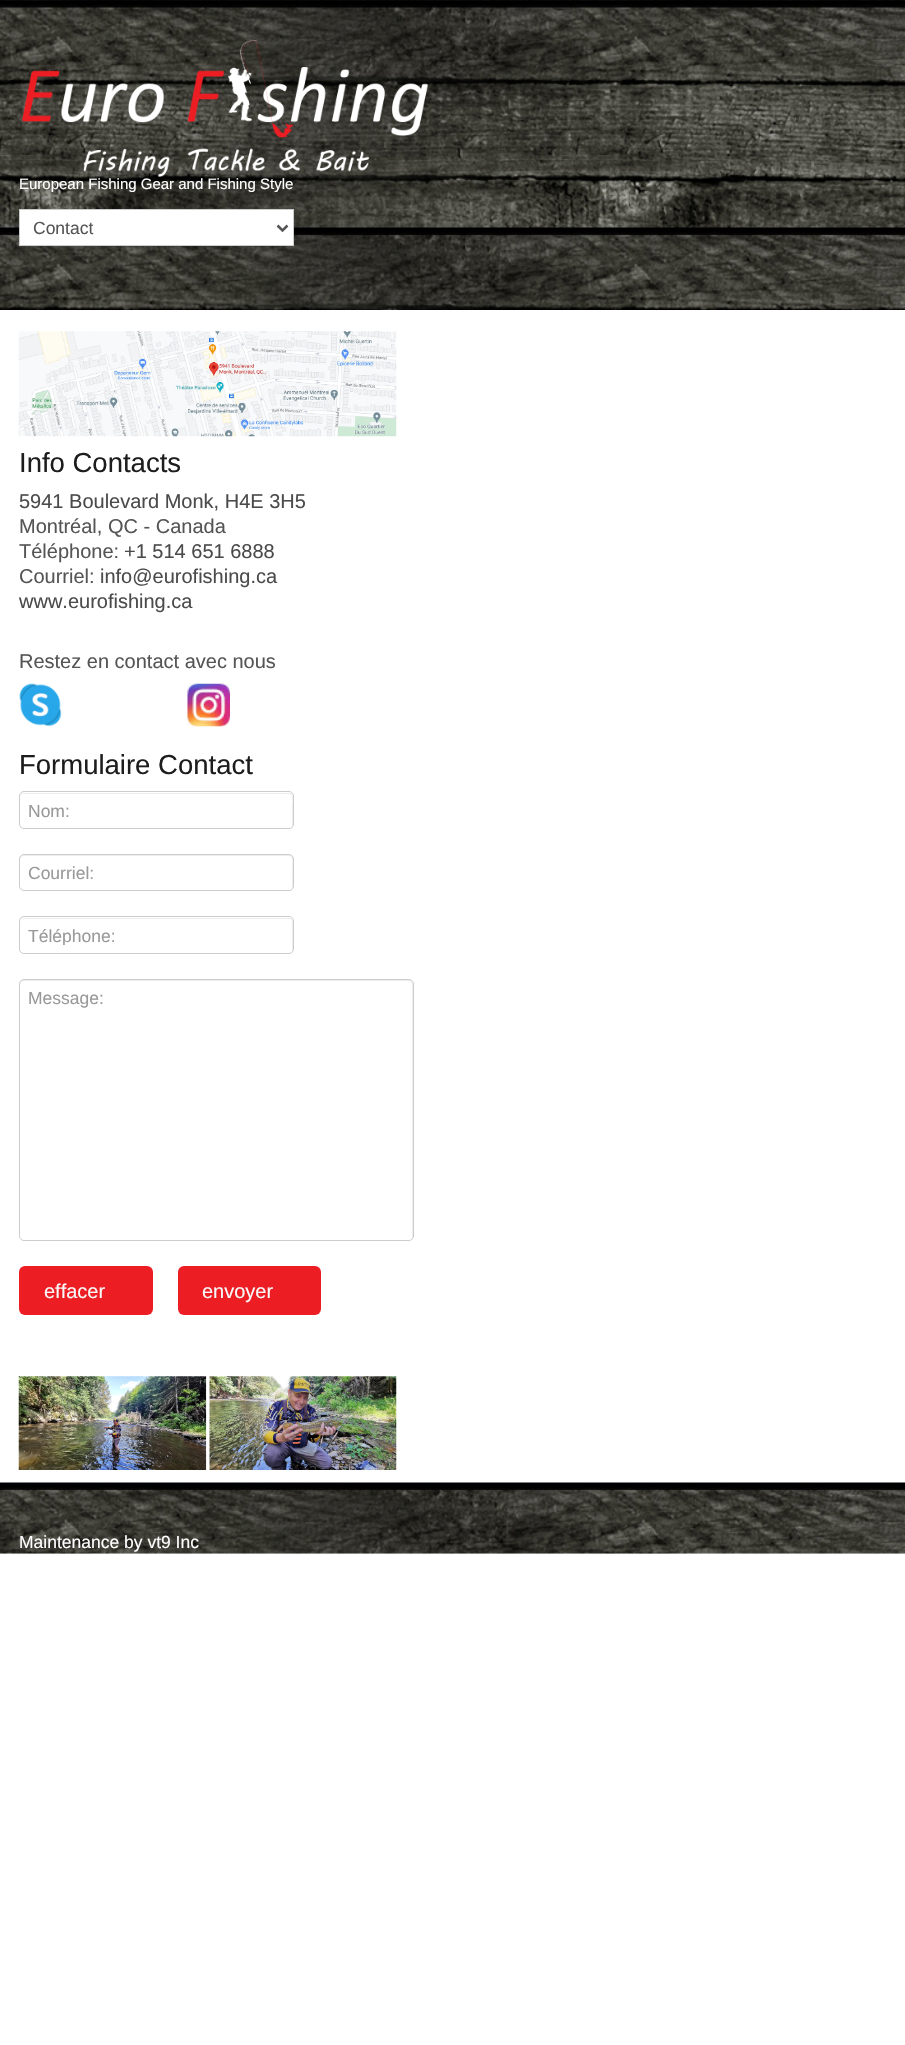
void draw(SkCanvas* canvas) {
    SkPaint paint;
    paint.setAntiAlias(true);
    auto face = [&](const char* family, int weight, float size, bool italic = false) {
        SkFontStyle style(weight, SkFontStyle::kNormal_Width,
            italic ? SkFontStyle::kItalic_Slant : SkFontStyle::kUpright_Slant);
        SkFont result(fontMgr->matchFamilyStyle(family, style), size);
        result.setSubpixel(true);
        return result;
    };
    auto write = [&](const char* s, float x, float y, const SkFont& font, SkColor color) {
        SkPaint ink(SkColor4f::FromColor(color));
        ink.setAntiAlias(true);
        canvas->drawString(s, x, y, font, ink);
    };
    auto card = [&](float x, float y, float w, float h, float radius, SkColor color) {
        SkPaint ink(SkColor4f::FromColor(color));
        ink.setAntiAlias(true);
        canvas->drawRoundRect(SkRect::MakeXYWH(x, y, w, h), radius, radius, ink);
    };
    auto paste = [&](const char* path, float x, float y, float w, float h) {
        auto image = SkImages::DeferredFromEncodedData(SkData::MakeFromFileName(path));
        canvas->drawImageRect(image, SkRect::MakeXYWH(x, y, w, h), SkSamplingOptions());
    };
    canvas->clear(SK_ColorWHITE);
    paste("pic1.png", 0, 0, 905, 310);
    paste("pic2.png", 22, 40, 407, 138);
    auto kFont1 = face("Liberation Sans", 400, 15);
    write("European Fishing Gear and Fishing Style", 19, 189, kFont1, SK_ColorWHITE);
    paint.setColor(SK_ColorWHITE);
    canvas->drawRect(SkRect::MakeXYWH(19.5f, 209.5f, 274, 36), paint);
    paint.setStyle(SkPaint::kStroke_Style);
    paint.setStrokeWidth(1);
    paint.setColor(SkColorSetRGB(204, 204, 204));
    canvas->drawRect(SkRect::MakeXYWH(19.5f, 209.5f, 274, 36), paint);
    paint.setStrokeWidth(2.5f);
    paint.setColor(SkColorSetRGB(85, 85, 85));
    canvas->drawPath(SkPathBuilder().moveTo(277.5f, 225.5f).lineTo(282.5f, 230.5f).lineTo(287.5f, 225.5f).detach(), paint);
    auto kFont2 = face("Liberation Sans", 400, 17.5f);
    write("Contact", 33, 234, kFont2, SkColorSetRGB(85, 85, 85));
    paste("pic3.png", 18, 331, 379, 106);
    auto kFont3 = face("Liberation Sans", 400, 27.5f);
    write("Info Contacts", 19, 472, kFont3, SkColorSetRGB(29, 29, 29));
    auto kFont4 = face("Liberation Sans", 400, 20);
    write("5941 Boulevard Monk, H4E 3H5", 19, 508, kFont4, SkColorSetRGB(75, 75, 75));
    write("Montréal, QC - Canada", 19, 533, kFont4, SkColorSetRGB(85, 85, 85));
    write("Téléphone:", 19, 558, kFont4, SkColorSetRGB(85, 85, 85));
    write("+1 514 651 6888", 124, 558, kFont4, SkColorSetRGB(75, 75, 75));
    write("Courriel:", 19, 583, kFont4, SkColorSetRGB(85, 85, 85));
    write("info@eurofishing.ca", 100, 583, kFont4, SkColorSetRGB(75, 75, 75));
    write("www.eurofishing.ca", 19, 608, kFont4, SkColorSetRGB(75, 75, 75));
    write("Restez en contact avec nous", 19, 668, kFont4, SkColorSetRGB(85, 85, 85));
    paste("pic4.png", 19, 683, 43, 44);
    paste("pic5.png", 187, 683, 43, 44);
    write("Formulaire Contact", 19, 774, kFont3, SkColorSetRGB(29, 29, 29));
    paint.setStyle(SkPaint::kFill_Style);
    paint.setColor(SkColorSetRGB(236, 236, 236));
    canvas->drawPath(SkPathBuilder().moveTo(24, 794).lineTo(289, 794).cubicTo(294, 794, 292, 804, 292, 807).lineTo(292, 827).cubicTo(292, 826, 293, 825, 293, 824).lineTo(293, 797).cubicTo(293, 795, 291, 793, 289, 793).lineTo(24, 793).cubicTo(22, 793, 20, 795, 20, 797).lineTo(20, 798).cubicTo(20, 795, 22, 794, 24, 794).close().detach(), paint);
    paint.setStyle(SkPaint::kStroke_Style);
    paint.setStrokeWidth(1);
    paint.setColor(SkColorSetRGB(204, 204, 204));
    canvas->drawRoundRect(SkRect::MakeXYWH(19.5f, 791.5f, 274, 37), 4.5f, 4.5f, paint);
    write("Nom:", 28, 817, kFont2, SkColorSetRGB(153, 153, 153));
    paint.setStyle(SkPaint::kFill_Style);
    paint.setColor(SkColorSetRGB(236, 236, 236));
    canvas->drawPath(SkPathBuilder().moveTo(24, 856).lineTo(289, 856).cubicTo(294, 856, 292, 867, 292, 869).lineTo(292, 889).cubicTo(293, 888, 293, 887, 293, 886).lineTo(293, 859).cubicTo(293, 857, 291, 855, 289, 855).lineTo(24, 855).cubicTo(22, 855, 20, 857, 20, 859).lineTo(20, 860).cubicTo(20, 858, 22, 856, 24, 856).close().detach(), paint);
    paint.setStyle(SkPaint::kStroke_Style);
    paint.setColor(SkColorSetRGB(204, 204, 204));
    canvas->drawRoundRect(SkRect::MakeXYWH(19.5f, 854.5f, 274, 36), 4.5f, 4.5f, paint);
    write("Courriel:", 28, 879, kFont2, SkColorSetRGB(153, 153, 153));
    paint.setStyle(SkPaint::kFill_Style);
    paint.setColor(SkColorSetRGB(236, 236, 236));
    canvas->drawPath(SkPathBuilder().moveTo(24, 919).lineTo(289, 919).cubicTo(291, 919, 292, 920, 292, 922).lineTo(292, 952).cubicTo(292, 951, 293, 950, 293, 949).lineTo(293, 922).cubicTo(293, 920, 291, 918, 289, 918).lineTo(24, 918).cubicTo(22, 918, 20, 920, 20, 922).cubicTo(20, 920, 22, 919, 24, 919).close().detach(), paint);
    paint.setStyle(SkPaint::kStroke_Style);
    paint.setColor(SkColorSetRGB(204, 204, 204));
    canvas->drawRoundRect(SkRect::MakeXYWH(19.5f, 916.5f, 274, 37), 4.5f, 4.5f, paint);
    canvas->save();
    canvas->clipRect(SkRect::MakeXYWH(28, 925, 257, 20));
    write("Téléphone:", 28, 942, kFont2, SkColorSetRGB(153, 153, 153));
    canvas->restore();
    paint.setStyle(SkPaint::kFill_Style);
    paint.setColor(SkColorSetRGB(236, 236, 236));
    canvas->drawPath(SkPathBuilder().moveTo(24, 981).lineTo(409, 981).cubicTo(411, 981, 412, 983, 412, 985).lineTo(412, 1239).cubicTo(413, 1238, 413, 1237, 413, 1236).lineTo(413, 984).cubicTo(413, 982, 411, 980, 409, 980).lineTo(24, 980).cubicTo(22, 980, 20, 982, 20, 984).lineTo(20, 985).cubicTo(20, 983, 22, 981, 24, 981).close().detach(), paint);
    paint.setStyle(SkPaint::kStroke_Style);
    paint.setColor(SkColorSetRGB(204, 204, 204));
    canvas->drawRoundRect(SkRect::MakeXYWH(19.5f, 979.5f, 394, 261), 4.5f, 4.5f, paint);
    write("Message:", 28, 1004, kFont2, SkColorSetRGB(153, 153, 153));
    card(19, 1266, 134, 49, 6, SkColorSetRGB(236, 30, 36));
    write("effacer", 44, 1298, kFont4, SkColorSetRGB(248, 248, 248));
    card(178, 1266, 143, 49, 6, SkColorSetRGB(236, 30, 36));
    write("envoyer", 202, 1298, kFont4, SkColorSetRGB(248, 248, 248));
    paste("pic6.png", 18, 1376, 379, 94);
    paste("pic7.png", 0, 1482, 905, 72);
    write("Maintenance by vt9 Inc", 19, 1548, kFont2, SK_ColorWHITE);
}
